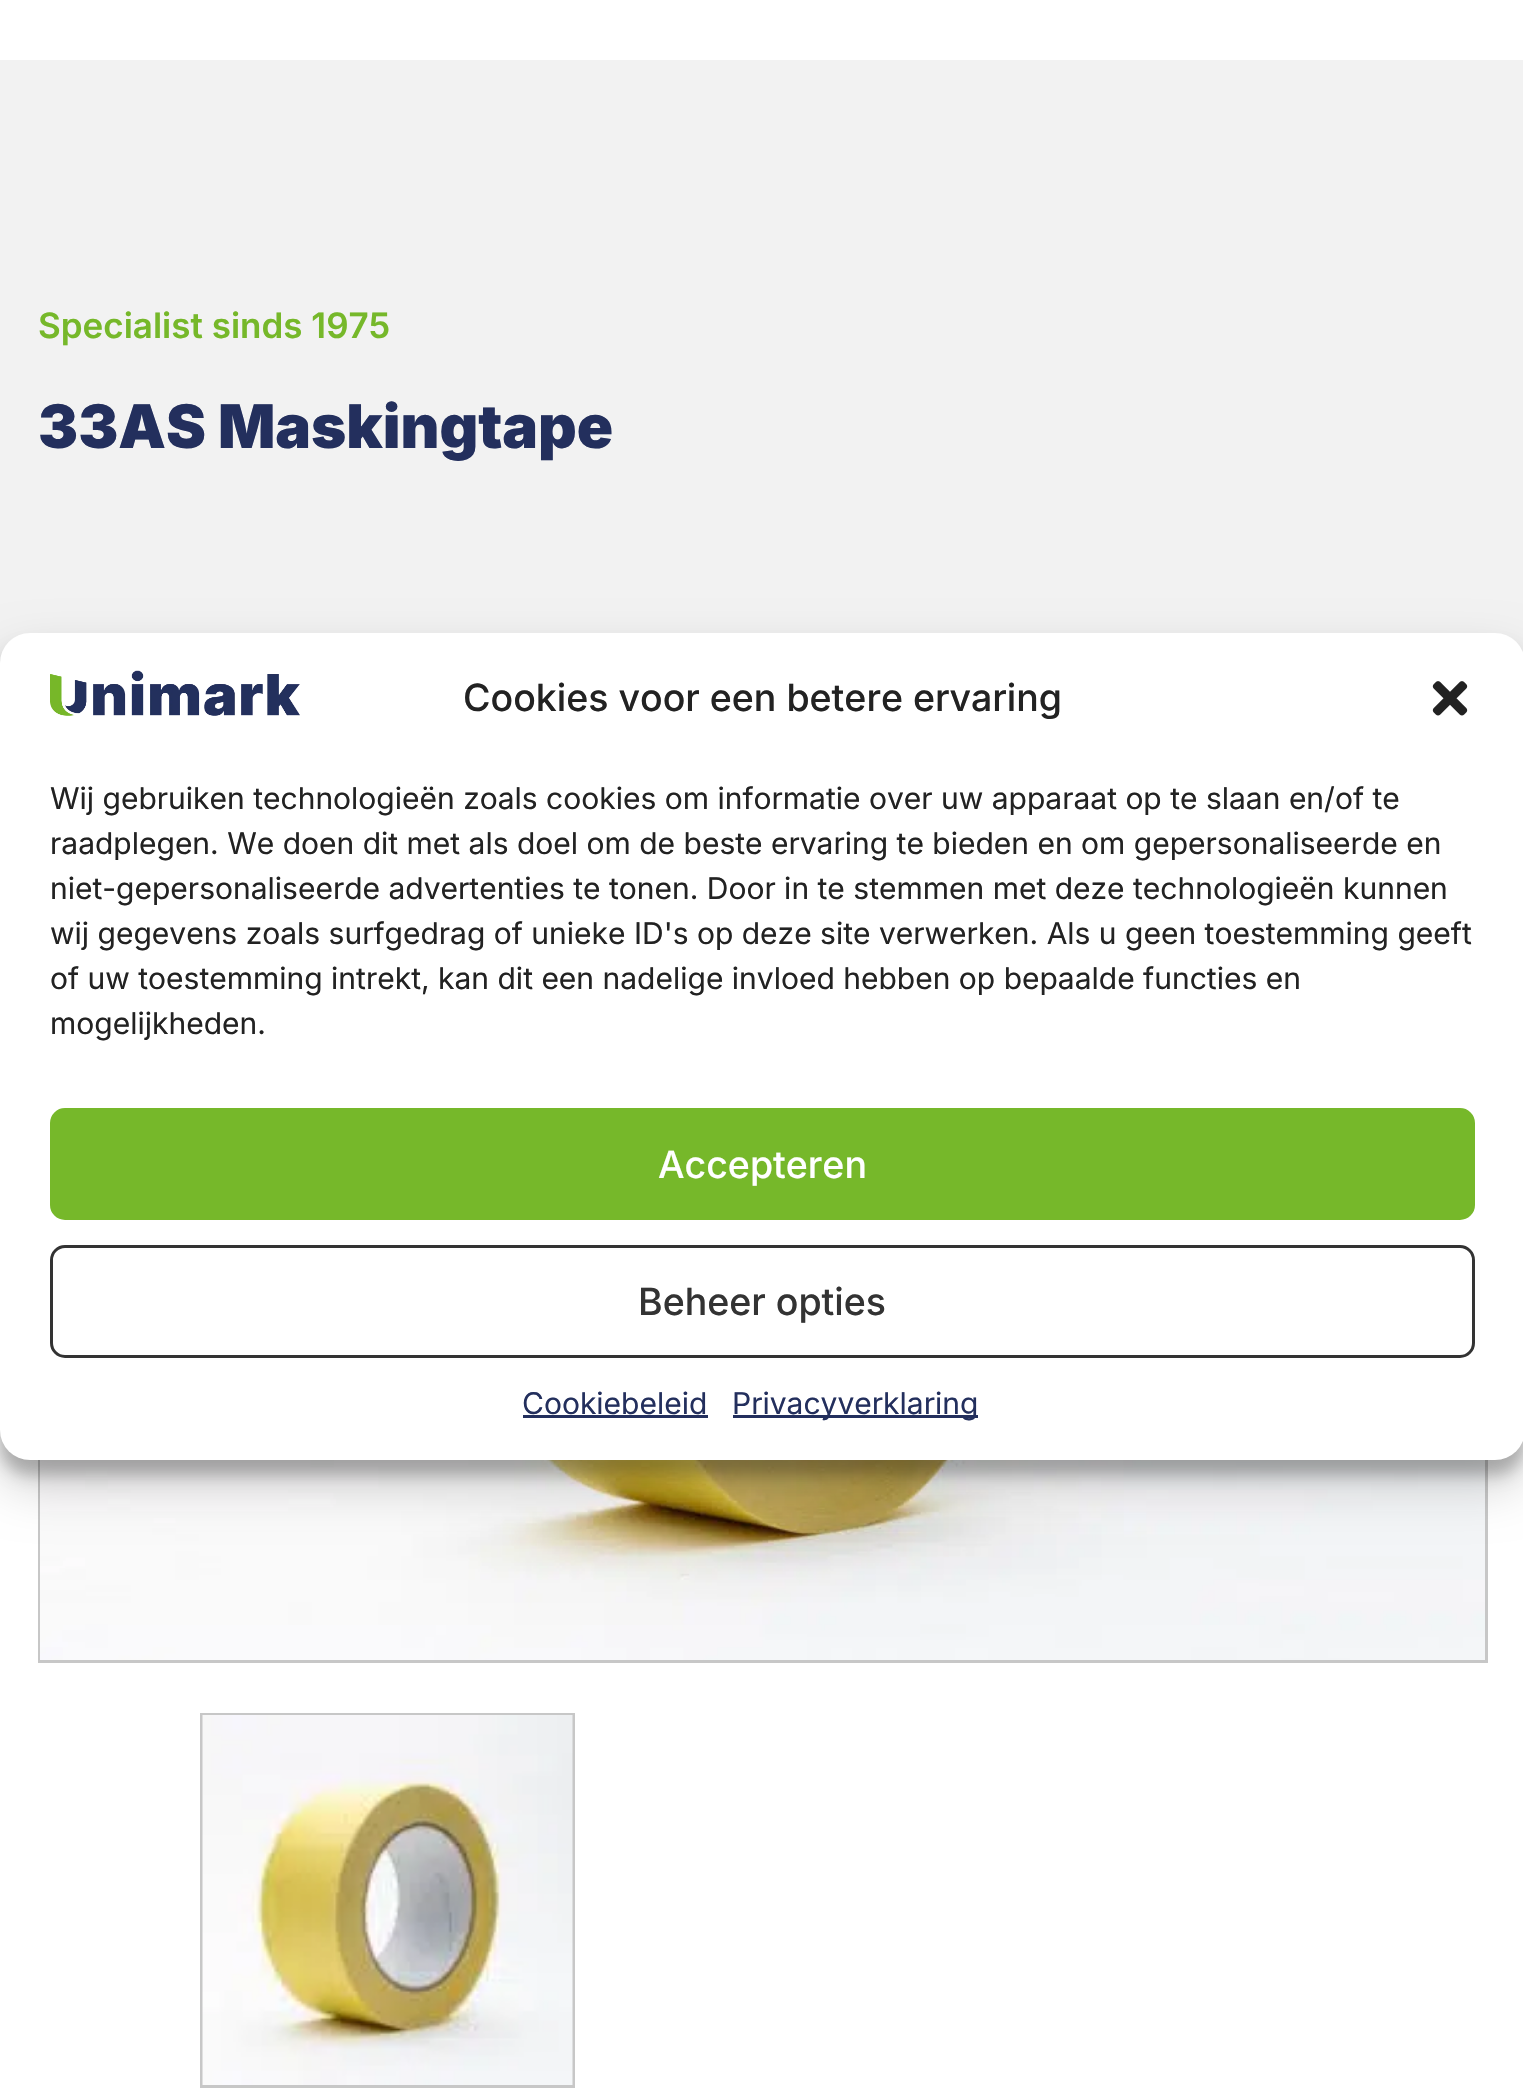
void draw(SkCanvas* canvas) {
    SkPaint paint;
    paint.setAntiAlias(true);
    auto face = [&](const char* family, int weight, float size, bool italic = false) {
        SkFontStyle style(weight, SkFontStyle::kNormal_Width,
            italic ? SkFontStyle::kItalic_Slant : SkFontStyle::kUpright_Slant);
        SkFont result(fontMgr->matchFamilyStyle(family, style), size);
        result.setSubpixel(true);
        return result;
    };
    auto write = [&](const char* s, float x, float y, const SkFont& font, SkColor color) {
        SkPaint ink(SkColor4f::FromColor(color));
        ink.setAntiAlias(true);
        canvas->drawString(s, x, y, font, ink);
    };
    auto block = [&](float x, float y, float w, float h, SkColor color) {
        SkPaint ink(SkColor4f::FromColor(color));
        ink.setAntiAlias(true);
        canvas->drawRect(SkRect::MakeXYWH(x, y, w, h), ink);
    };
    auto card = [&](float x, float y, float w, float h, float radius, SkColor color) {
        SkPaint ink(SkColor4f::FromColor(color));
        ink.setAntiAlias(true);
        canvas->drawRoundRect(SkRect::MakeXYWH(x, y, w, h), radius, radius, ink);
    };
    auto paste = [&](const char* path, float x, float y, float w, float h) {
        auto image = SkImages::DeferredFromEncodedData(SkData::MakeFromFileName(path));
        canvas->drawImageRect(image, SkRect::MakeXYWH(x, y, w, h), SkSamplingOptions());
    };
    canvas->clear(SK_ColorWHITE);
    block(0, 60, 1523, 603, SkColorSetRGB(242, 242, 242));
    auto kFont1 = face("Inter", 600, 35);
    write("Specialist sinds 1975", 38, 338, kFont1, SkColorSetRGB(118, 184, 42));
    auto kFont2 = face("Inter", 900, 60);
    write("33AS Maskingtape", 38, 448, kFont2, SkColorSetRGB(35, 47, 93));
    paint.setStyle(SkPaint::kStroke_Style);
    paint.setStrokeWidth(3);
    paint.setColor(SkColorSetRGB(199, 199, 199));
    canvas->drawRect(SkRect::MakeXYWH(39.5f, 811.5f, 1447, 850), paint);
    paste("pic3.png", 40, 1460, 1445, 200);
    paint.setStyle(SkPaint::kFill_Style);
    paint.setColor(SkColorSetARGB(59, 0, 0, 0));
    paint.setMaskFilter(SkMaskFilter::MakeBlur(kNormal_SkBlurStyle, 7.5f));
    canvas->drawRoundRect(SkRect::MakeXYWH(0, 648, 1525, 827), 30, 30, paint);
    paint.setMaskFilter(nullptr);
    paint.setColor(SkColorSetARGB(48, 0, 0, 0));
    paint.setMaskFilter(SkMaskFilter::MakeBlur(kNormal_SkBlurStyle, 25));
    canvas->drawRoundRect(SkRect::MakeXYWH(0, 658, 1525, 827), 30, 30, paint);
    paint.setMaskFilter(nullptr);
    card(0, 633, 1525, 827, 30, SK_ColorWHITE);
    paste("pic1.png", 50, 670, 250, 46);
    auto kFont3 = face("Inter", 500, 37.5f);
    write("Cookies voor een betere ervaring", 463, 711, kFont3, SkColorSetRGB(34, 34, 34));
    paste("pic2.png", 1432, 681, 36, 35);
    auto kFont4 = face("Inter", 400, 30);
    write("Wij gebruiken technologieën zoals cookies om informatie over uw apparaat op te slaan en/of te", 50, 809, kFont4, SkColorSetRGB(34, 34, 34));
    write("raadplegen. We doen dit met als doel om de beste ervaring te bieden en om gepersonaliseerde en", 50, 854, kFont4, SkColorSetRGB(34, 34, 34));
    write("niet-gepersonaliseerde advertenties te tonen. Door in te stemmen met deze technologieën kunnen", 50, 899, kFont4, SkColorSetRGB(34, 34, 34));
    write("wij gegevens zoals surfgedrag of unieke ID's op deze site verwerken. Als u geen toestemming geeft", 50, 944, kFont4, SkColorSetRGB(34, 34, 34));
    write("of uw toestemming intrekt, kan dit een nadelige invloed hebben op bepaalde functies en", 50, 989, kFont4, SkColorSetRGB(34, 34, 34));
    write("mogelijkheden.", 50, 1034, kFont4, SkColorSetRGB(34, 34, 34));
    paint.setColor(SkColorSetRGB(118, 184, 42));
    canvas->drawRoundRect(SkRect::MakeXYWH(51.5f, 1109.5f, 1422, 109), 13.5f, 13.5f, paint);
    paint.setStyle(SkPaint::kStroke_Style);
    canvas->drawRoundRect(SkRect::MakeXYWH(51.5f, 1109.5f, 1422, 109), 13.5f, 13.5f, paint);
    write("Accepteren", 658, 1178, kFont3, SK_ColorWHITE);
    paint.setColor(SkColorSetRGB(51, 51, 51));
    canvas->drawRoundRect(SkRect::MakeXYWH(51.5f, 1246.5f, 1422, 110), 13.5f, 13.5f, paint);
    write("Beheer opties", 638, 1315, kFont3, SkColorSetRGB(51, 51, 51));
    write("Cookiebeleid", 522, 1414, kFont4, SkColorSetRGB(35, 47, 93));
    block(523, 1415, 185, 3, SkColorSetRGB(35, 47, 93));
    block(733, 1415, 245, 3, SkColorSetRGB(35, 47, 93));
    write("Privacyverklaring", 732, 1414, kFont4, SkColorSetRGB(35, 47, 93));
    paint.setColor(SkColorSetRGB(199, 199, 199));
    canvas->drawRect(SkRect::MakeXYWH(201.5f, 1714.5f, 372, 372), paint);
    paste("pic4.png", 202, 1715, 371, 370);
}
